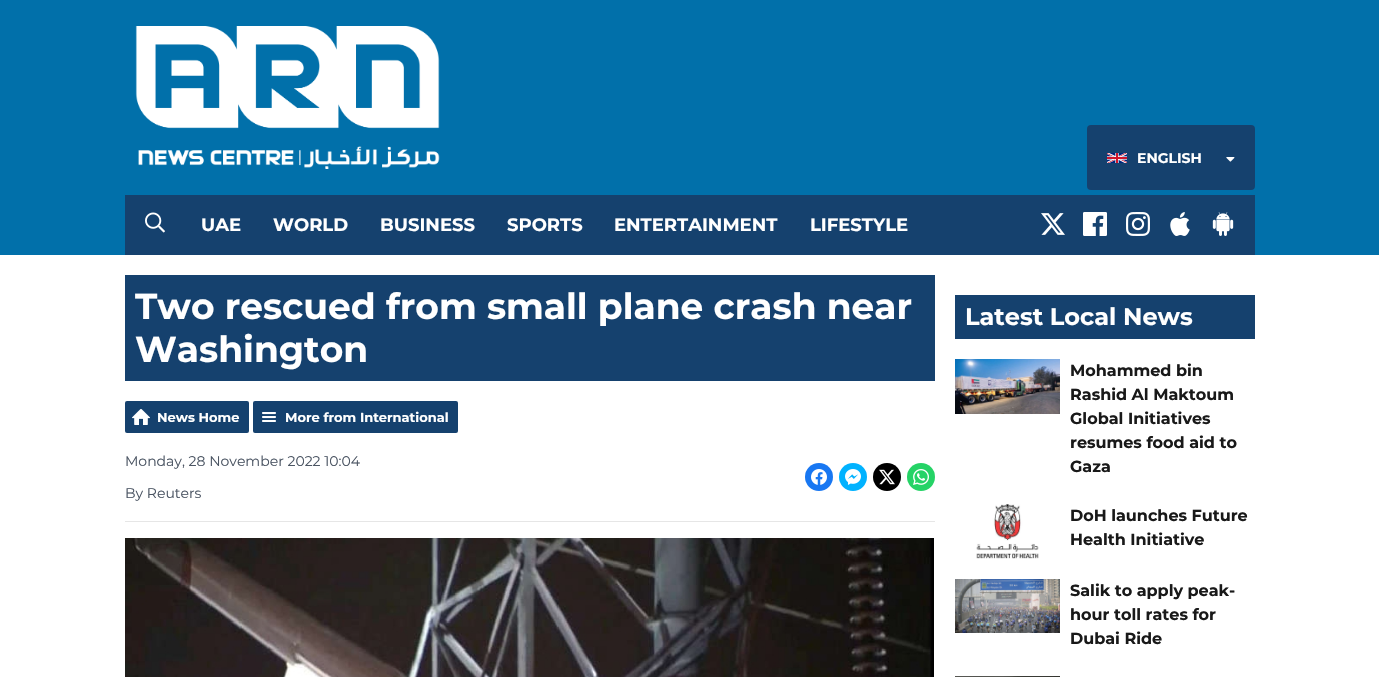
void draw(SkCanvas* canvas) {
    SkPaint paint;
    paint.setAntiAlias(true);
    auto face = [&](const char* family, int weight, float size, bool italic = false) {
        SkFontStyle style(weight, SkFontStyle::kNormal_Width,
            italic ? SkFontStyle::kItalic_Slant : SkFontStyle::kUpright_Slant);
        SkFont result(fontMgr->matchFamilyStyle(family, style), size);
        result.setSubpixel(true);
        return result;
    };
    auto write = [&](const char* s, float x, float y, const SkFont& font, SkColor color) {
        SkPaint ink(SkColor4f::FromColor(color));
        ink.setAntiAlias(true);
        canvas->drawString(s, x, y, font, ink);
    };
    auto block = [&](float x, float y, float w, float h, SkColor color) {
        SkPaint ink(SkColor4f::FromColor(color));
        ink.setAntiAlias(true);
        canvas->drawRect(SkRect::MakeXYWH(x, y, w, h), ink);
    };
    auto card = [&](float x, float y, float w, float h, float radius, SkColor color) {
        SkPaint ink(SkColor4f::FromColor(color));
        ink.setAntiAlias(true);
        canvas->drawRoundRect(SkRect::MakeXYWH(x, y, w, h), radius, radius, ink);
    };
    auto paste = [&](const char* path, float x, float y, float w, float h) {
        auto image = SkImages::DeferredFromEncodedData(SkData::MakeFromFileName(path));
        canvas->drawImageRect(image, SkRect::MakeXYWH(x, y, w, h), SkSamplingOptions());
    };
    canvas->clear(SK_ColorWHITE);
    block(0, 0, 1379, 255, SkColorSetRGB(1, 112, 170));
    paste("pic1.png", 135, 26, 305, 143);
    card(1087, 125, 168, 65, 4, SkColorSetRGB(21, 65, 110));
    paste("pic2.png", 1107, 153, 20, 10);
    auto kFont1 = face("Montserrat", 700, 14);
    write("ENGLISH", 1137, 163, kFont1, SK_ColorWHITE);
    paste("pic3.png", 1226, 157, 9, 5);
    block(125, 195, 1130, 60, SkColorSetRGB(21, 65, 110));
    paste("pic4.png", 145, 212, 20, 21);
    auto kFont2 = face("Montserrat", 700, 18);
    write("UAE", 201, 231, kFont2, SK_ColorWHITE);
    write("WORLD", 273, 231, kFont2, SK_ColorWHITE);
    write("BUSINESS", 380, 231, kFont2, SK_ColorWHITE);
    write("SPORTS", 507, 231, kFont2, SK_ColorWHITE);
    write("ENTERTAINMENT", 614, 231, kFont2, SK_ColorWHITE);
    write("LIFESTYLE", 810, 231, kFont2, SK_ColorWHITE);
    paste("pic5.png", 1041, 213, 24, 22);
    paste("pic6.png", 1083, 212, 24, 24);
    paste("pic7.png", 1126, 212, 24, 24);
    paste("pic8.png", 1170, 212, 20, 24);
    paste("pic9.png", 1212, 212, 22, 24);
    block(125, 275, 810, 106, SkColorSetRGB(21, 65, 110));
    auto kFont3 = face("Montserrat", 700, 36);
    write("Two rescued from small plane crash near", 135, 319, kFont3, SK_ColorWHITE);
    write("Washington", 135, 362, kFont3, SK_ColorWHITE);
    card(125, 401, 124, 32, 2, SkColorSetRGB(21, 65, 110));
    paste("pic10.png", 132, 409, 18, 16);
    auto kFont4 = face("Montserrat", 700, 13);
    write("News Home", 157, 422, kFont4, SK_ColorWHITE);
    card(253, 401, 205, 32, 2, SkColorSetRGB(21, 65, 110));
    paste("pic11.png", 262, 412, 14, 10);
    write("More from International", 285, 422, kFont4, SK_ColorWHITE);
    block(125, 521, 810, 1, SkColorSetRGB(230, 230, 230));
    auto kFont5 = face("Montserrat", 400, 14);
    write("Monday, 28 November 2022 10:04", 125, 466, kFont5, SkColorSetRGB(75, 85, 99));
    write("By Reuters", 125, 498, kFont5, SkColorSetRGB(75, 85, 99));
    paint.setColor(SkColorSetRGB(24, 119, 242));
    canvas->drawCircle(819, 477, 14, paint);
    paste("pic12.png", 811, 469, 16, 16);
    paint.setColor(SkColorSetRGB(0, 178, 255));
    canvas->drawCircle(853, 477, 14, paint);
    paste("pic13.png", 845, 469, 16, 16);
    paint.setColor(SK_ColorBLACK);
    canvas->drawCircle(887, 477, 14, paint);
    paste("pic14.png", 879, 469, 16, 16);
    paint.setColor(SkColorSetRGB(37, 211, 102));
    canvas->drawCircle(921, 477, 14, paint);
    paste("pic15.png", 913, 469, 16, 16);
    paste("pic16.png", 125, 538, 809, 139);
    block(955, 295, 300, 44, SkColorSetRGB(21, 65, 110));
    auto kFont6 = face("Montserrat", 700, 24);
    write("Latest Local News", 965, 325, kFont6, SK_ColorWHITE);
    paste("pic17.png", 955, 359, 105, 55);
    auto kFont7 = face("Montserrat", 700, 16);
    write("Mohammed bin", 1070, 376, kFont7, SkColorSetRGB(25, 25, 25));
    write("Rashid Al Maktoum", 1070, 400, kFont7, SkColorSetRGB(25, 25, 25));
    write("Global Initiatives", 1070, 424, kFont7, SkColorSetRGB(25, 25, 25));
    write("resumes food aid to", 1070, 448, kFont7, SkColorSetRGB(25, 25, 25));
    write("Gaza", 1070, 472, kFont7, SkColorSetRGB(25, 25, 25));
    paste("pic18.png", 976, 504, 63, 55);
    write("DoH launches Future", 1070, 521, kFont7, SkColorSetRGB(25, 25, 25));
    write("Health Initiative", 1070, 545, kFont7, SkColorSetRGB(25, 25, 25));
    paste("pic19.png", 955, 579, 105, 54);
    write("Salik to apply peak-", 1070, 596, kFont7, SkColorSetRGB(25, 25, 25));
    write("hour toll rates for", 1070, 620, kFont7, SkColorSetRGB(25, 25, 25));
    write("Dubai Ride", 1070, 644, kFont7, SkColorSetRGB(25, 25, 25));
    paste("pic20.png", 955, 676, 105, 1);
}
